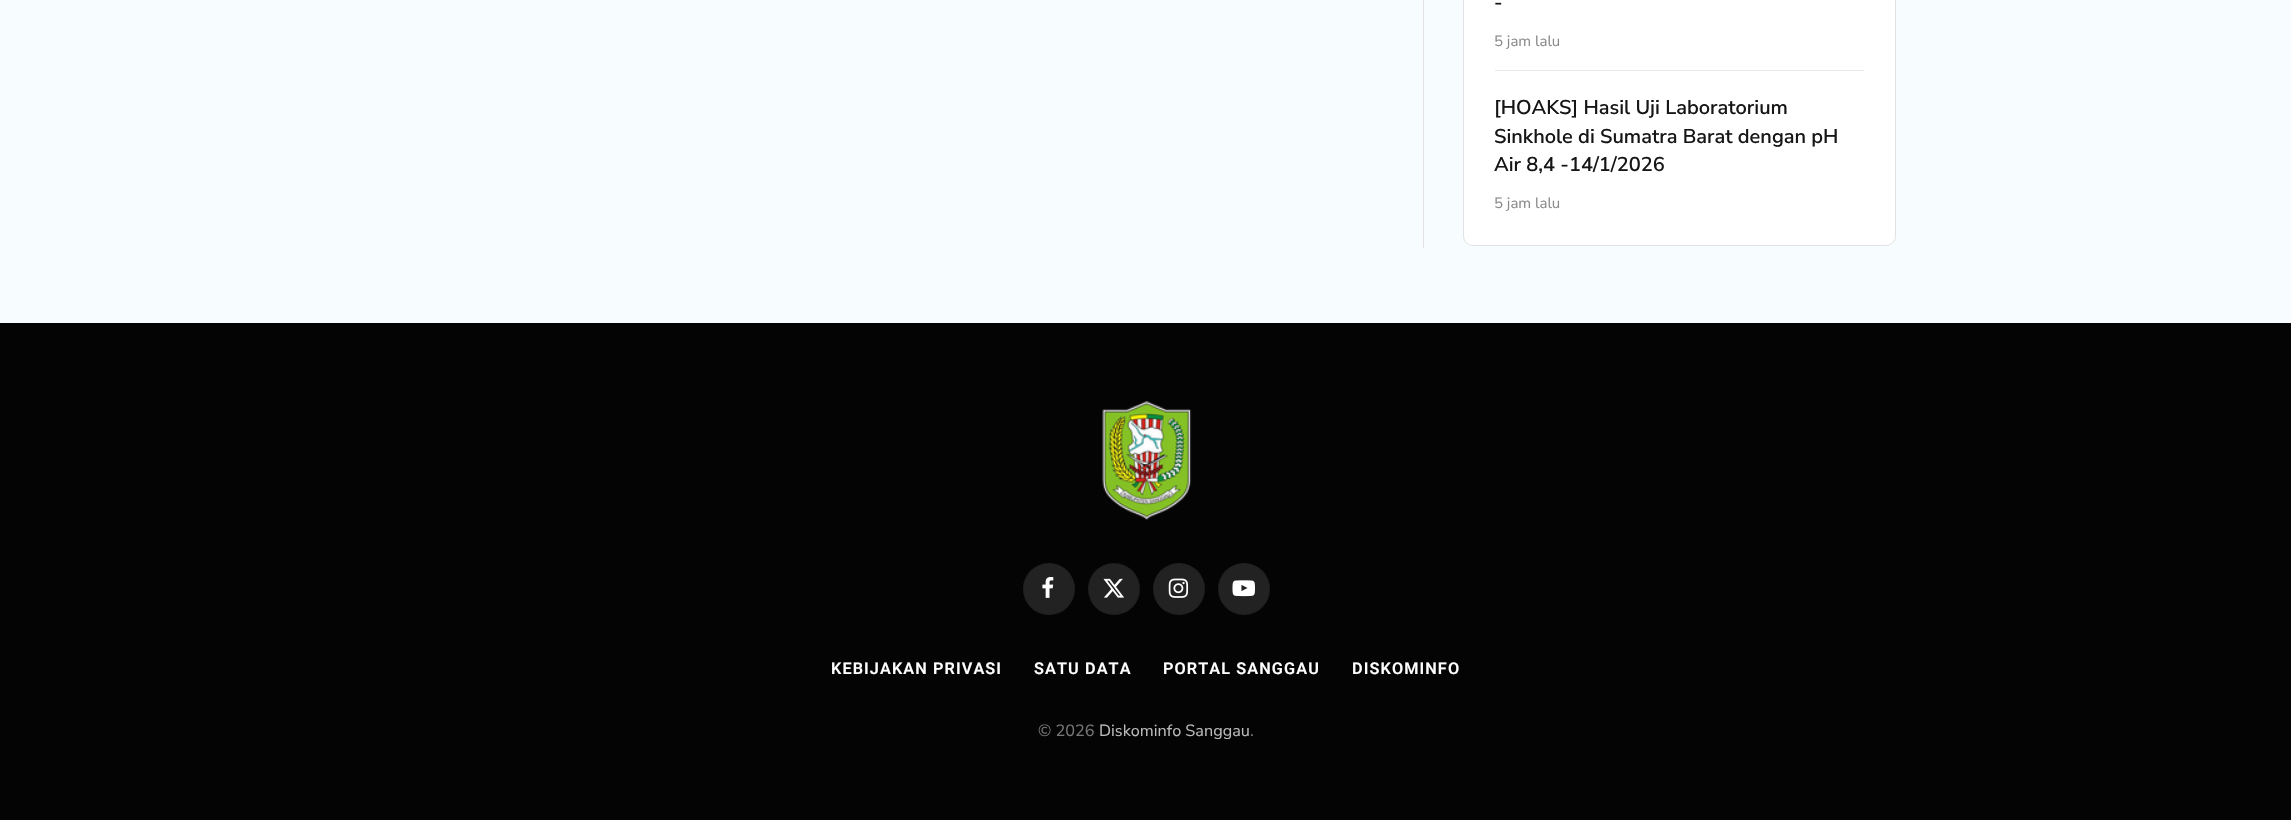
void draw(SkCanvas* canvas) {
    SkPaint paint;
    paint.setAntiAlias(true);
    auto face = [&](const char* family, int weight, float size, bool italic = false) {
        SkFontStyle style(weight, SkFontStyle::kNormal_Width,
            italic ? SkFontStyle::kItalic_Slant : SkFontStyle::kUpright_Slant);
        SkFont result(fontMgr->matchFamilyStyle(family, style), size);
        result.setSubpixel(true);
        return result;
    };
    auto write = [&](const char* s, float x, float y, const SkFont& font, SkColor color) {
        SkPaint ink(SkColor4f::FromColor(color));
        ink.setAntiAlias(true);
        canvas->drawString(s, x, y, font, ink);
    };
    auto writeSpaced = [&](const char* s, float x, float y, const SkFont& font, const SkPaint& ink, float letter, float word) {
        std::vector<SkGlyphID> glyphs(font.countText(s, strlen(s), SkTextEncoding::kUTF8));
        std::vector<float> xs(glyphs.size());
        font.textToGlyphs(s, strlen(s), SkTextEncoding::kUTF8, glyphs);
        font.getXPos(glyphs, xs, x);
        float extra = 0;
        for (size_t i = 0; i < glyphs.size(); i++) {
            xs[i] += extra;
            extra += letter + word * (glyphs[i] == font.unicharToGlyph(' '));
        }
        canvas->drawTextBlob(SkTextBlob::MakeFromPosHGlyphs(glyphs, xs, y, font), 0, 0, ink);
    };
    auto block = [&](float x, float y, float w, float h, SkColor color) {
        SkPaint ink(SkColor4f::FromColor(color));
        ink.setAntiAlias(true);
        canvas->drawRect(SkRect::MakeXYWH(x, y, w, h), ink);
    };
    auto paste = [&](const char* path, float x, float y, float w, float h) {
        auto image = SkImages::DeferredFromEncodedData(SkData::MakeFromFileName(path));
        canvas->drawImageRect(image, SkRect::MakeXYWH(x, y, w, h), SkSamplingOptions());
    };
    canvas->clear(SkColorSetRGB(247, 252, 255));
    block(1423, 0, 1, 248, SkColorSetRGB(226, 226, 226));
    paint.setColor(SK_ColorWHITE);
    canvas->drawRoundRect(SkRect::MakeXYWH(1463.5f, -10.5f, 432, 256), 9.5f, 9.5f, paint);
    paint.setStyle(SkPaint::kStroke_Style);
    paint.setStrokeWidth(1);
    paint.setColor(SkColorSetRGB(226, 226, 226));
    canvas->drawRoundRect(SkRect::MakeXYWH(1463.5f, -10.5f, 432, 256), 9.5f, 9.5f, paint);
    auto kFont1 = face("Nunito Sans", 600, 20);
    write("-", 1494, 9, kFont1, SkColorSetRGB(22, 22, 22));
    auto kFont2 = face("Nunito Sans", 400, 15);
    write("5 jam lalu", 1494, 46, kFont2, SkColorSetRGB(138, 138, 138));
    block(1495, 70, 369, 1, SkColorSetRGB(232, 232, 232));
    write("[HOAKS] Hasil Uji Laboratorium", 1494, 114, kFont1, SkColorSetRGB(22, 22, 22));
    write("Sinkhole di Sumatra Barat dengan pH", 1494, 143, kFont1, SkColorSetRGB(22, 22, 22));
    write("Air 8,4 -14/1/2026", 1494, 171, kFont1, SkColorSetRGB(22, 22, 22));
    write("5 jam lalu", 1494, 208, kFont2, SkColorSetRGB(138, 138, 138));
    block(0, 323, 2291, 497, SkColorSetRGB(4, 4, 4));
    paste("pic1.png", 1102, 401, 90, 119);
    paint.setStyle(SkPaint::kFill_Style);
    paint.setColor(SkColorSetRGB(34, 34, 34));
    canvas->drawCircle(1049, 589, 26, paint);
    paint.setStyle(SkPaint::kStroke_Style);
    paint.setColor(SkColorSetARGB(23, 0, 0, 0));
    canvas->drawCircle(1049, 589, 25.5f, paint);
    paste("pic2.png", 1042, 577, 12, 21);
    paint.setStyle(SkPaint::kFill_Style);
    paint.setColor(SkColorSetRGB(34, 34, 34));
    canvas->drawCircle(1114, 589, 26, paint);
    paint.setStyle(SkPaint::kStroke_Style);
    paint.setColor(SkColorSetARGB(23, 0, 0, 0));
    canvas->drawCircle(1114, 589, 25.5f, paint);
    paste("pic3.png", 1103, 578, 21, 20);
    paint.setStyle(SkPaint::kFill_Style);
    paint.setColor(SkColorSetRGB(34, 34, 34));
    canvas->drawCircle(1179, 589, 26, paint);
    paint.setStyle(SkPaint::kStroke_Style);
    paint.setColor(SkColorSetARGB(23, 0, 0, 0));
    canvas->drawCircle(1179, 589, 25.5f, paint);
    paste("pic4.png", 1168, 578, 21, 20);
    paint.setStyle(SkPaint::kFill_Style);
    paint.setColor(SkColorSetRGB(34, 34, 34));
    canvas->drawCircle(1244, 589, 26, paint);
    paint.setStyle(SkPaint::kStroke_Style);
    paint.setColor(SkColorSetARGB(23, 0, 0, 0));
    canvas->drawCircle(1244, 589, 25.5f, paint);
    paste("pic5.png", 1232, 580, 23, 17);
    auto kFont3 = face("Roboto", 600, 16.25f);
    paint.setStyle(SkPaint::kFill_Style);
    paint.setColor(SK_ColorWHITE);
    writeSpaced("KEBIJAKAN PRIVASI", 831, 674, kFont3, paint, 1.1f, 0);
    writeSpaced("SATU DATA", 1034, 674, kFont3, paint, 1.1f, 0);
    writeSpaced("PORTAL SANGGAU", 1163, 674, kFont3, paint, 1.1f, 0);
    writeSpaced("DISKOMINFO", 1352, 674, kFont3, paint, 1.1f, 0);
    auto kFont4 = face("Nunito Sans", 400, 16.25f);
    write("© 2026", 1038, 736, kFont4, SkColorSetRGB(119, 119, 119));
    write("Diskominfo Sanggau", 1099, 736, kFont4, SkColorSetRGB(187, 187, 187));
    write(".", 1250, 736, kFont4, SkColorSetRGB(119, 119, 119));
}
